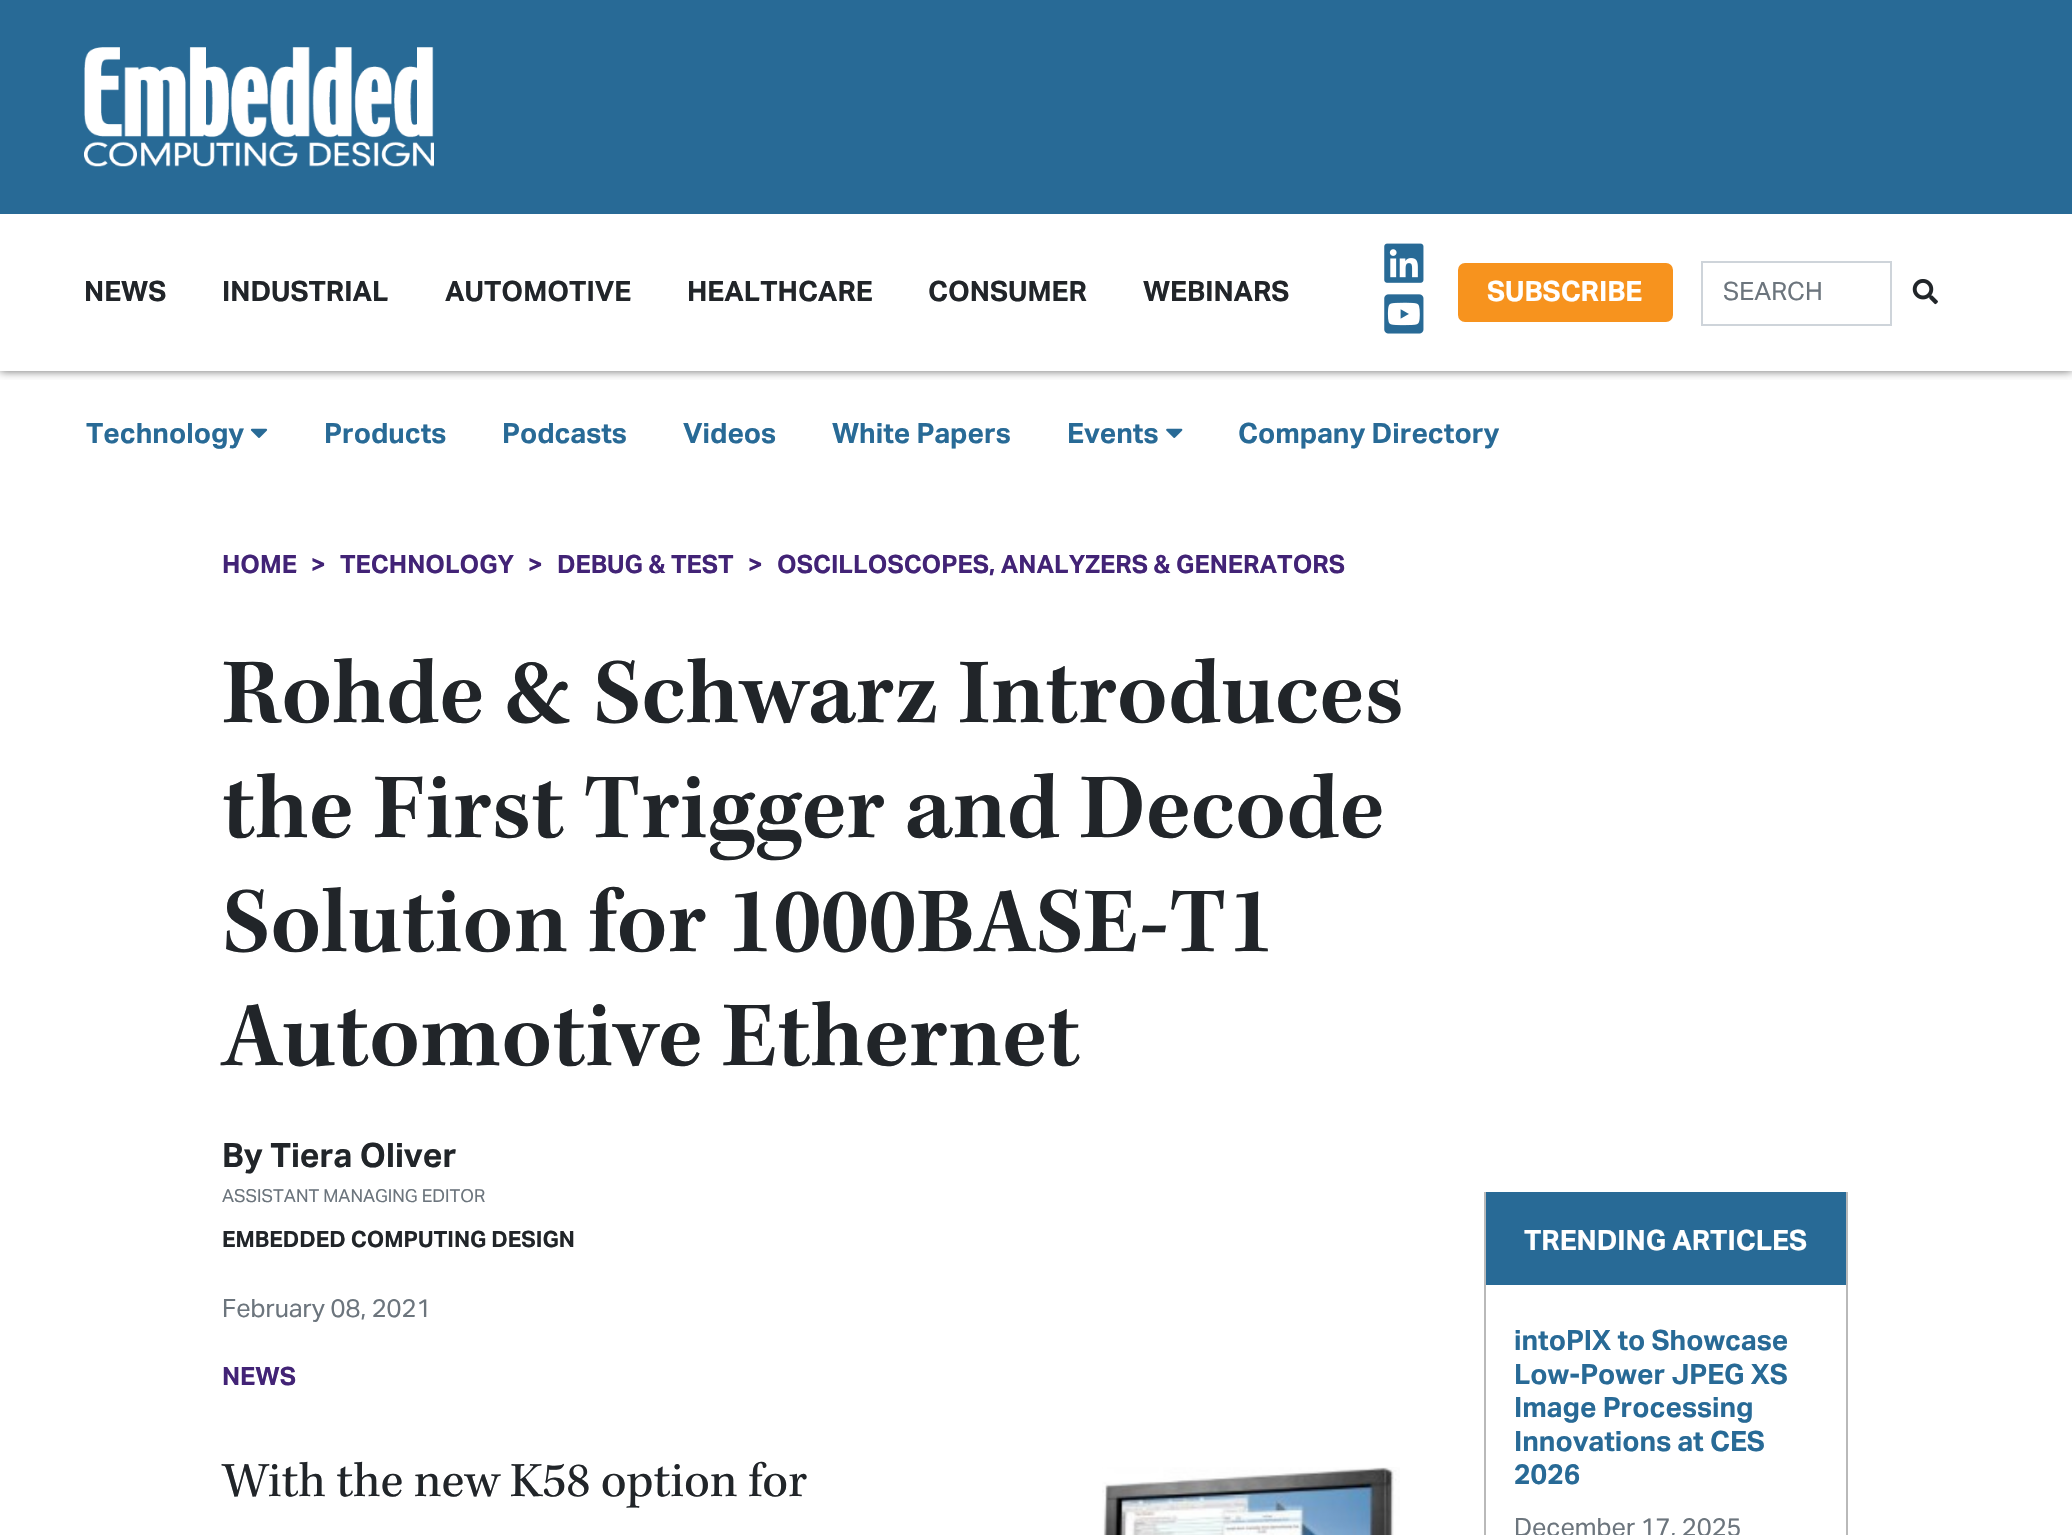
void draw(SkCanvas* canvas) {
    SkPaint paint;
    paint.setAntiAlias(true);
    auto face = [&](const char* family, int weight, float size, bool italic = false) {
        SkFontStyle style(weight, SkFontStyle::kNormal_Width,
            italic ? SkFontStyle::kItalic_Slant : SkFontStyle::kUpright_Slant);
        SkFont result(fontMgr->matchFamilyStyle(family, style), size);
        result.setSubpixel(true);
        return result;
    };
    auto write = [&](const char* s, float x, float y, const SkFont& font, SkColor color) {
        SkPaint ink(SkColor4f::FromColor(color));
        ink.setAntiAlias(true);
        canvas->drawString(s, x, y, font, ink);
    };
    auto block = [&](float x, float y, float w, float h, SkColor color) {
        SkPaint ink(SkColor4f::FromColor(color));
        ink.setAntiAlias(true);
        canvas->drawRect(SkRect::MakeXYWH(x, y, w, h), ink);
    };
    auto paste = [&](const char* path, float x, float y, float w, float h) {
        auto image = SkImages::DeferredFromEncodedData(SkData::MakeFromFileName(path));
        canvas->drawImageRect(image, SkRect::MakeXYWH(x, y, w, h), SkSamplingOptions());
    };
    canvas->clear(SK_ColorWHITE);
    canvas->save();
    canvas->clipRect(SkRect::MakeXYWH(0, 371, 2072, 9));
    paint.setColor(SkColorSetRGB(105, 105, 105));
    paint.setMaskFilter(SkMaskFilter::MakeBlur(kNormal_SkBlurStyle, 4.5f));
    canvas->drawRect(SkRect::MakeXYWH(0, 0, 2072, 371), paint);
    paint.setMaskFilter(nullptr);
    canvas->restore();
    block(0, 0, 2072, 214, SkColorSetRGB(40, 106, 150));
    paste("pic1.png", 84, 47, 350, 120);
    auto kFont1 = face("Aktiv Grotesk", 700, 28);
    write("NEWS", 84, 301, kFont1, SkColorSetRGB(33, 37, 41));
    write("INDUSTRIAL", 222, 301, kFont1, SkColorSetRGB(33, 37, 41));
    write("AUTOMOTIVE", 445, 301, kFont1, SkColorSetRGB(33, 37, 41));
    write("HEALTHCARE", 687, 301, kFont1, SkColorSetRGB(33, 37, 41));
    write("CONSUMER", 928, 301, kFont1, SkColorSetRGB(33, 37, 41));
    write("WEBINARS", 1143, 301, kFont1, SkColorSetRGB(33, 37, 41));
    paste("pic2.png", 1384, 243, 40, 40);
    paste("pic3.png", 1384, 294, 40, 40);
    paint.setColor(SkColorSetRGB(247, 147, 30));
    canvas->drawRoundRect(SkRect::MakeXYWH(1459, 264, 213, 57), 6, 6, paint);
    paint.setStyle(SkPaint::kStroke_Style);
    paint.setStrokeWidth(2);
    canvas->drawRoundRect(SkRect::MakeXYWH(1459, 264, 213, 57), 6, 6, paint);
    write("SUBSCRIBE", 1487, 301, kFont1, SK_ColorWHITE);
    paint.setColor(SkColorSetRGB(206, 212, 218));
    canvas->drawRect(SkRect::MakeXYWH(1702, 262, 189, 63), paint);
    auto kFont2 = face("Aktiv Grotesk", 400, 25.2f);
    write("SEARCH", 1723, 300, kFont2, SkColorSetRGB(108, 117, 125));
    paste("pic4.png", 1912, 279, 26, 26);
    write("Technology", 86, 443, kFont1, SkColorSetRGB(40, 106, 150));
    paste("pic5.png", 250, 428, 18, 10);
    write("Products", 324, 443, kFont1, SkColorSetRGB(40, 106, 150));
    write("Podcasts", 502, 443, kFont1, SkColorSetRGB(40, 106, 150));
    write("Videos", 683, 443, kFont1, SkColorSetRGB(40, 106, 150));
    write("White Papers", 832, 443, kFont1, SkColorSetRGB(40, 106, 150));
    write("Events", 1067, 443, kFont1, SkColorSetRGB(40, 106, 150));
    paste("pic6.png", 1166, 428, 17, 10);
    write("Company Directory", 1238, 443, kFont1, SkColorSetRGB(40, 106, 150));
    auto kFont3 = face("Aktiv Grotesk", 700, 25.2f);
    write("HOME", 222, 573, kFont3, SkColorSetRGB(66, 35, 118));
    write(">", 311, 573, kFont3, SkColorSetRGB(66, 35, 118));
    write("TECHNOLOGY", 340, 573, kFont3, SkColorSetRGB(66, 35, 118));
    write(">", 528, 573, kFont3, SkColorSetRGB(66, 35, 118));
    write("DEBUG & TEST", 557, 573, kFont3, SkColorSetRGB(66, 35, 118));
    write(">", 748, 573, kFont3, SkColorSetRGB(66, 35, 118));
    write("OSCILLOSCOPES, ANALYZERS & GENERATORS", 777, 573, kFont3, SkColorSetRGB(66, 35, 118));
    auto kFont4 = face("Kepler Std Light", 600, 95.25f);
    write("Rohde & Schwarz Introduces", 222, 722, kFont4, SkColorSetRGB(33, 37, 41));
    write("the First Trigger and Decode", 222, 837, kFont4, SkColorSetRGB(33, 37, 41));
    write("Solution for 1000BASE-T1", 222, 951, kFont4, SkColorSetRGB(33, 37, 41));
    write("Automotive Ethernet", 222, 1065, kFont4, SkColorSetRGB(33, 37, 41));
    auto kFont5 = face("Aktiv Grotesk", 700, 33.5f);
    write("By Tiera Oliver", 222, 1167, kFont5, SkColorSetRGB(33, 37, 41));
    auto kFont6 = face("Aktiv Grotesk", 400, 17.9f);
    write("ASSISTANT MANAGING EDITOR", 222, 1202, kFont6, SkColorSetRGB(108, 117, 125));
    auto kFont7 = face("Aktiv Grotesk", 700, 22.4f);
    write("EMBEDDED COMPUTING DESIGN", 222, 1247, kFont7, SkColorSetRGB(33, 37, 41));
    write("February 08, 2021", 222, 1317, kFont2, SkColorSetRGB(108, 117, 125));
    write("NEWS", 222, 1385, kFont3, SkColorSetRGB(66, 35, 118));
    auto kFont8 = face("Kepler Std", 400, 50.4f);
    write("With the new K58 option for", 222, 1496, kFont8, SkColorSetRGB(33, 37, 41));
    paste("pic7.png", 1102, 1467, 298, 68);
    block(1846, 1192, 2, 343, SkColorSetRGB(185, 185, 185));
    block(1484, 1192, 2, 343, SkColorSetRGB(185, 185, 185));
    block(1486, 1192, 360, 93, SkColorSetRGB(40, 106, 150));
    write("TRENDING ARTICLES", 1524, 1250, kFont1, SK_ColorWHITE);
    write("intoPIX to Showcase", 1514, 1350, kFont1, SkColorSetRGB(40, 106, 150));
    write("Low-Power JPEG XS", 1514, 1384, kFont1, SkColorSetRGB(40, 106, 150));
    write("Image Processing", 1514, 1417, kFont1, SkColorSetRGB(40, 106, 150));
    write("Innovations at CES", 1514, 1451, kFont1, SkColorSetRGB(40, 106, 150));
    write("2026", 1514, 1484, kFont1, SkColorSetRGB(40, 106, 150));
    write("December 17, 2025", 1514, 1536, kFont2, SkColorSetRGB(108, 117, 125));
}
